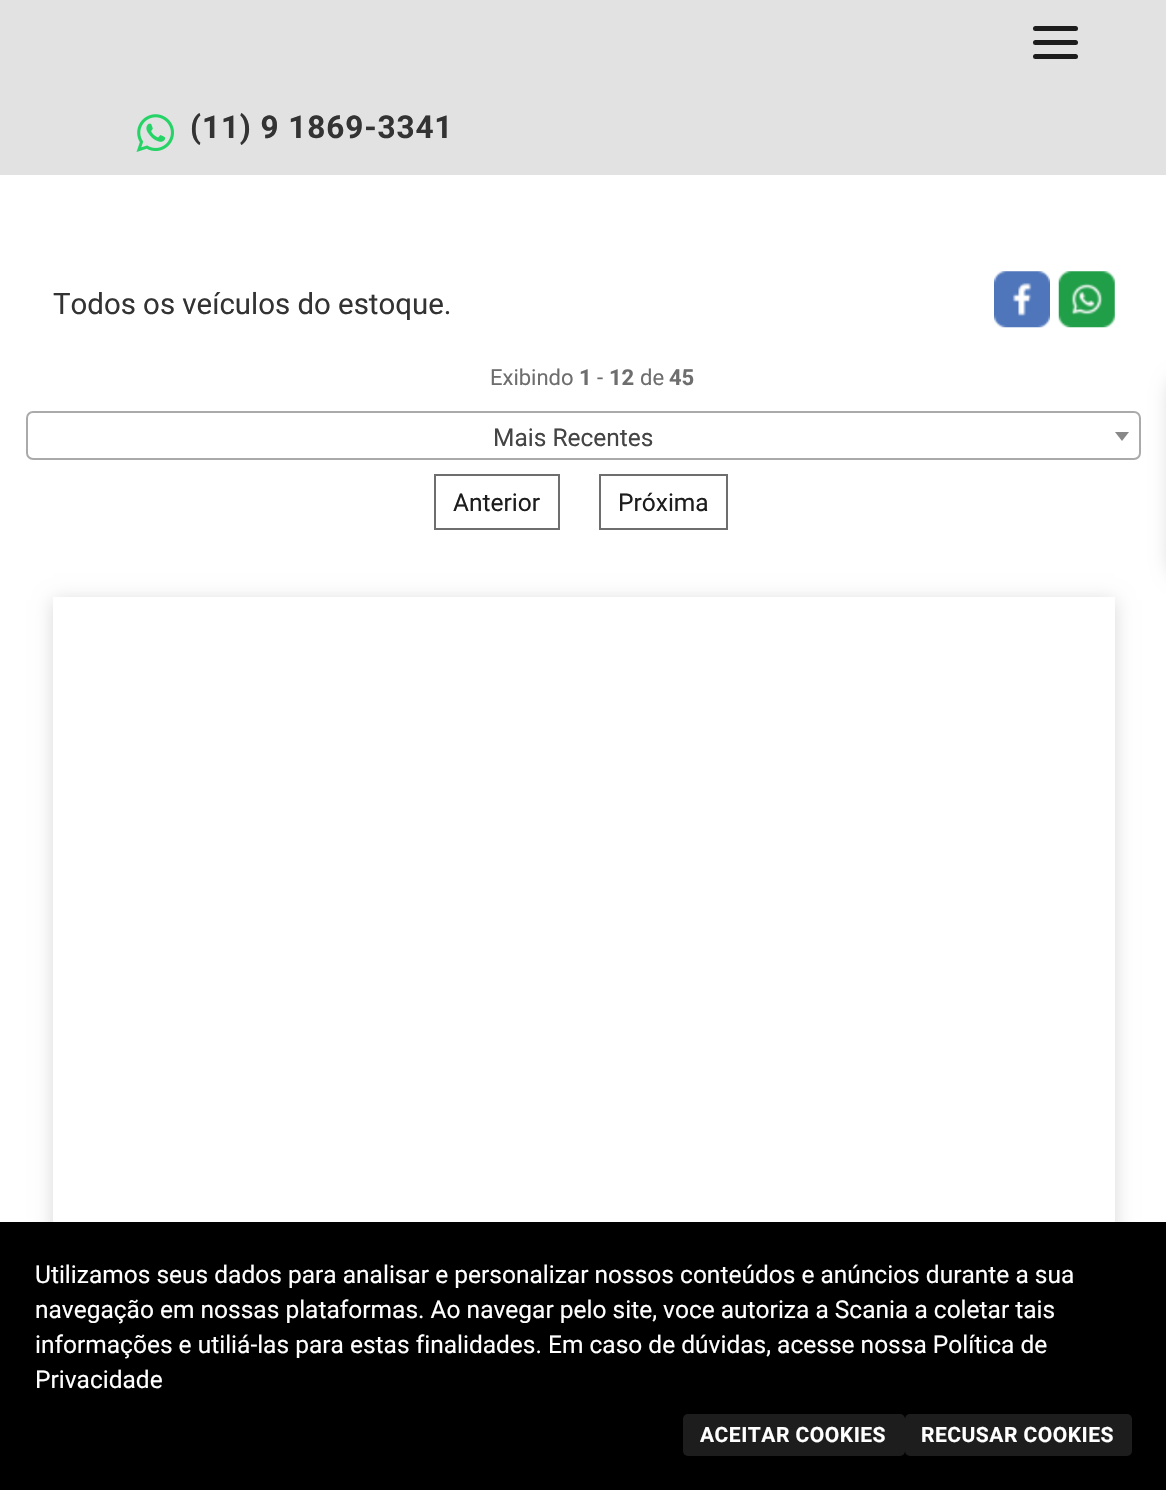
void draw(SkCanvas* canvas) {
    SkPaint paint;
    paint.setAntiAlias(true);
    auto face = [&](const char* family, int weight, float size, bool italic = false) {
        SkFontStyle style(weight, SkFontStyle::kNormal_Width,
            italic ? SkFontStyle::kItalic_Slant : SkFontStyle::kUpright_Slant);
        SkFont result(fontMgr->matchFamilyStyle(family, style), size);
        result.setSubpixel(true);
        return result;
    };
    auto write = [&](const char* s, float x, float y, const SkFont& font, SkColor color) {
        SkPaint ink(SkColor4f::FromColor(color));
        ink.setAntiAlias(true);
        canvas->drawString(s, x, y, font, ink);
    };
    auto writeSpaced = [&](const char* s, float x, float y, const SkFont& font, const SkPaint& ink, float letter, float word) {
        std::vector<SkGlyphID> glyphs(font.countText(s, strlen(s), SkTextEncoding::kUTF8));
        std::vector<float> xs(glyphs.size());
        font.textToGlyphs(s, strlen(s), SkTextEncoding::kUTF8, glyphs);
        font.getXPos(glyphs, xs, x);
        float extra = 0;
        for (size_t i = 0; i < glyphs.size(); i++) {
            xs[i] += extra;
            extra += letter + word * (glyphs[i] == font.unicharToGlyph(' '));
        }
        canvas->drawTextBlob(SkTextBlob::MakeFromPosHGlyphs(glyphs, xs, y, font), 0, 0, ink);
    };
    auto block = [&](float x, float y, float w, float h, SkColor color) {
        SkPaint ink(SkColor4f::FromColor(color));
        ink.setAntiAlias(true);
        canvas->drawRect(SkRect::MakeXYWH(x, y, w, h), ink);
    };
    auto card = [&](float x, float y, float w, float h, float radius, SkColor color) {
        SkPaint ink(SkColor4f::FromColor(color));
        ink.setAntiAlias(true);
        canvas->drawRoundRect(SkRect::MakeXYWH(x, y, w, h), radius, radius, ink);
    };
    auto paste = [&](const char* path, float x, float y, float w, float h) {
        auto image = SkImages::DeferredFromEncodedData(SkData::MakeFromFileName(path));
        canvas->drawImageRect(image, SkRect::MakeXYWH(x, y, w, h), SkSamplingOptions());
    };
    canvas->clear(SK_ColorWHITE);
    block(0, 0, 1166, 175, SkColorSetRGB(226, 226, 226));
    card(1033, 26, 45, 5, 2.5f, SkColorSetRGB(29, 29, 29));
    card(1033, 40, 45, 5, 2.5f, SkColorSetRGB(29, 29, 29));
    card(1033, 54, 45, 5, 2.5f, SkColorSetRGB(29, 29, 29));
    paste("pic1.png", 136, 114, 38, 38);
    auto kFont1 = face("Roboto", 700, 31.5f);
    paint.setColor(SkColorSetRGB(51, 51, 51));
    writeSpaced("(11) 9 1869-3341", 190, 138, kFont1, paint, 0.9f, 0);
    auto kFont2 = face("Roboto", 400, 29.4f);
    write("Todos os veículos do estoque.", 53, 314, kFont2, SkColorSetRGB(51, 51, 51));
    paste("pic2.png", 994, 271, 56, 57);
    paste("pic3.png", 1058, 271, 57, 57);
    auto kFont3 = face("Roboto", 400, 22);
    write("Exibindo", 490, 385, kFont3, SkColorSetRGB(110, 110, 110));
    auto kFont4 = face("Roboto", 700, 22);
    write("1", 579, 385, kFont4, SkColorSetRGB(110, 110, 110));
    write("-", 597, 385, kFont3, SkColorSetRGB(110, 110, 110));
    write("12", 609, 385, kFont4, SkColorSetRGB(110, 110, 110));
    write("de", 640, 385, kFont3, SkColorSetRGB(110, 110, 110));
    write("45", 669, 385, kFont4, SkColorSetRGB(110, 110, 110));
    paint.setStyle(SkPaint::kStroke_Style);
    paint.setStrokeWidth(2);
    paint.setColor(SkColorSetRGB(170, 170, 170));
    canvas->drawRoundRect(SkRect::MakeXYWH(27, 412, 1113, 47), 6, 6, paint);
    auto kFont5 = face("Roboto", 400, 24.5f);
    write("Mais Recentes", 493, 446, kFont5, SkColorSetRGB(68, 68, 68));
    paint.setStyle(SkPaint::kFill_Style);
    paint.setColor(SkColorSetRGB(136, 136, 136));
    canvas->drawPath(SkPathBuilder().moveTo(1115, 432).lineTo(1129, 432).lineTo(1122, 441).close().detach(), paint);
    paint.setStyle(SkPaint::kStroke_Style);
    paint.setColor(SkColorSetRGB(110, 110, 110));
    canvas->drawRect(SkRect::MakeXYWH(435, 475, 124, 54), paint);
    write("Anterior", 453, 511, kFont5, SkColorSetRGB(29, 29, 29));
    canvas->drawRect(SkRect::MakeXYWH(600, 475, 127, 54), paint);
    write("Próxima", 618, 511, kFont5, SkColorSetRGB(29, 29, 29));
    canvas->save();
    canvas->clipPath(SkPathBuilder(SkPathFillType::kEvenOdd).moveTo(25, 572).lineTo(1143, 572).lineTo(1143, 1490).lineTo(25, 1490).close().moveTo(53, 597).lineTo(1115, 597).lineTo(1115, 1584).lineTo(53, 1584).close().detach(), true);
    paint.setStyle(SkPaint::kFill_Style);
    paint.setColor(SkColorSetARGB(38, 0, 0, 0));
    paint.setMaskFilter(SkMaskFilter::MakeBlur(kNormal_SkBlurStyle, 9));
    canvas->drawRect(SkRect::MakeXYWH(53, 600, 1062, 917), paint);
    paint.setMaskFilter(nullptr);
    canvas->restore();
    paint.setMaskFilter(SkMaskFilter::MakeBlur(kNormal_SkBlurStyle, 9));
    canvas->drawRoundRect(SkRect::MakeXYWH(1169, 376, 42, 202), 18, 18, paint);
    paint.setMaskFilter(nullptr);
    block(0, 1222, 1166, 268, SK_ColorBLACK);
    write("Utilizamos seus dados para analisar e personalizar nossos conteúdos e anúncios durante a sua", 35, 1283, kFont5, SK_ColorWHITE);
    write("navegação em nossas plataformas. Ao navegar pelo site, voce autoriza a Scania a coletar tais", 35, 1318, kFont5, SK_ColorWHITE);
    write("informações e utiliá-las para estas finalidades. Em caso de dúvidas, acesse nossa Política de", 35, 1353, kFont5, SK_ColorWHITE);
    write("Privacidade", 35, 1388, kFont5, SK_ColorWHITE);
    card(683, 1414, 222, 42, 5, SkColorSetRGB(29, 29, 29));
    auto kFont6 = face("Roboto", 700, 21);
    paint.setColor(SK_ColorWHITE);
    writeSpaced("ACEITAR COOKIES", 700, 1442, kFont6, paint, 0.5f, 0);
    card(905, 1414, 227, 42, 5, SkColorSetRGB(29, 29, 29));
    writeSpaced("RECUSAR COOKIES", 921, 1442, kFont6, paint, 0.5f, 0);
}
